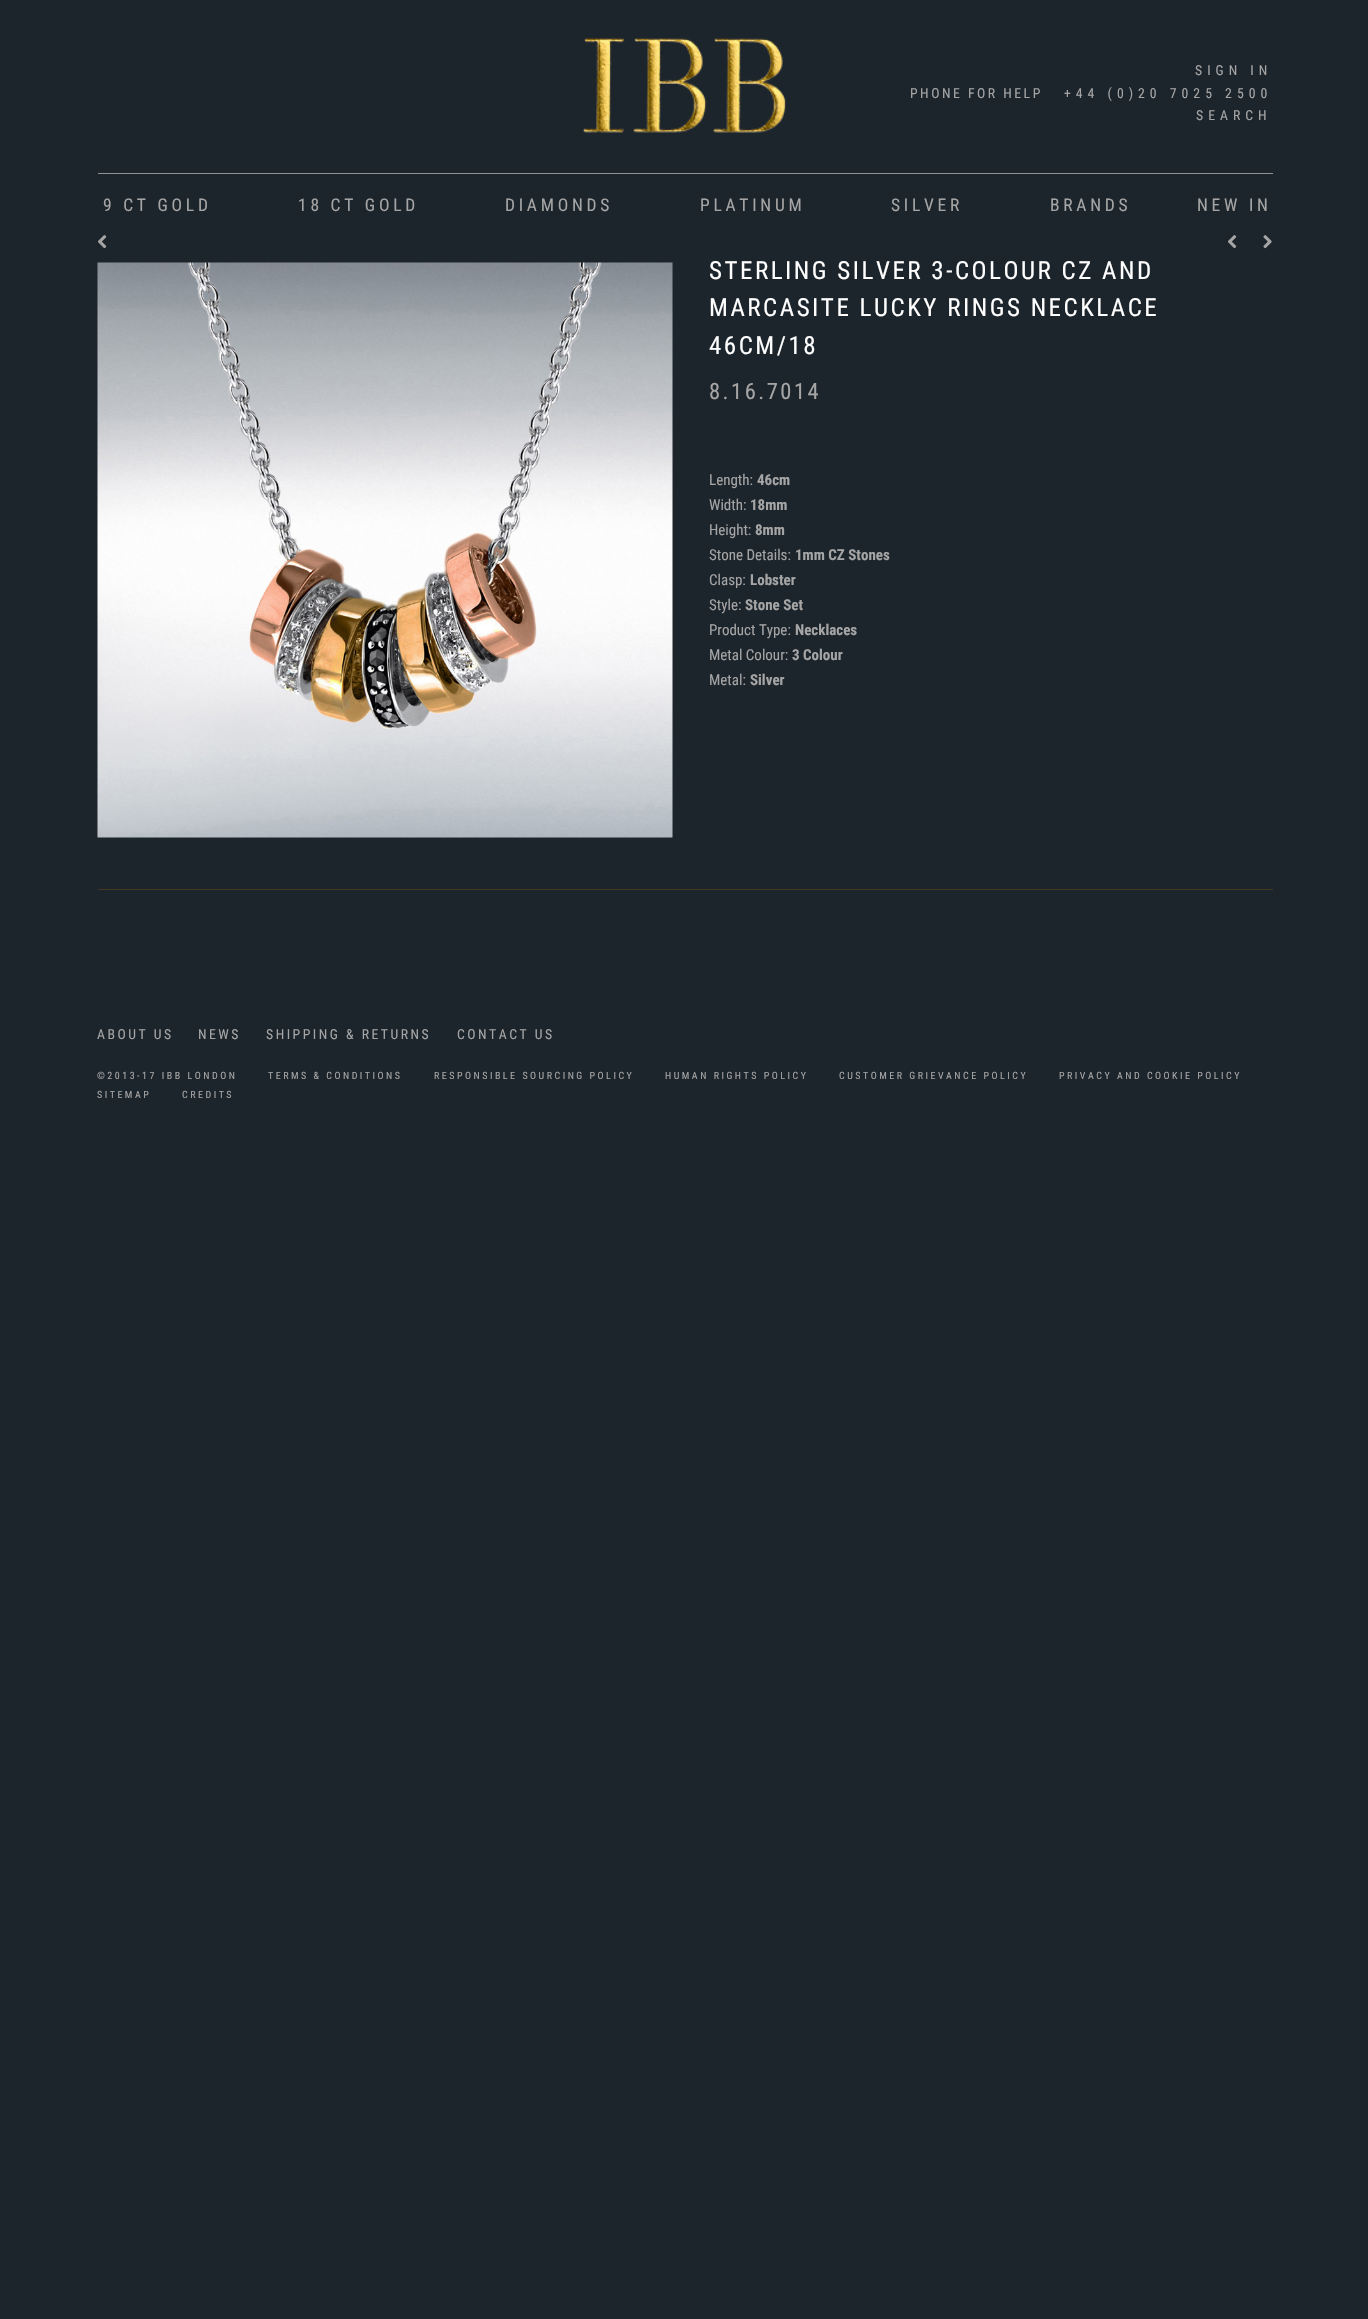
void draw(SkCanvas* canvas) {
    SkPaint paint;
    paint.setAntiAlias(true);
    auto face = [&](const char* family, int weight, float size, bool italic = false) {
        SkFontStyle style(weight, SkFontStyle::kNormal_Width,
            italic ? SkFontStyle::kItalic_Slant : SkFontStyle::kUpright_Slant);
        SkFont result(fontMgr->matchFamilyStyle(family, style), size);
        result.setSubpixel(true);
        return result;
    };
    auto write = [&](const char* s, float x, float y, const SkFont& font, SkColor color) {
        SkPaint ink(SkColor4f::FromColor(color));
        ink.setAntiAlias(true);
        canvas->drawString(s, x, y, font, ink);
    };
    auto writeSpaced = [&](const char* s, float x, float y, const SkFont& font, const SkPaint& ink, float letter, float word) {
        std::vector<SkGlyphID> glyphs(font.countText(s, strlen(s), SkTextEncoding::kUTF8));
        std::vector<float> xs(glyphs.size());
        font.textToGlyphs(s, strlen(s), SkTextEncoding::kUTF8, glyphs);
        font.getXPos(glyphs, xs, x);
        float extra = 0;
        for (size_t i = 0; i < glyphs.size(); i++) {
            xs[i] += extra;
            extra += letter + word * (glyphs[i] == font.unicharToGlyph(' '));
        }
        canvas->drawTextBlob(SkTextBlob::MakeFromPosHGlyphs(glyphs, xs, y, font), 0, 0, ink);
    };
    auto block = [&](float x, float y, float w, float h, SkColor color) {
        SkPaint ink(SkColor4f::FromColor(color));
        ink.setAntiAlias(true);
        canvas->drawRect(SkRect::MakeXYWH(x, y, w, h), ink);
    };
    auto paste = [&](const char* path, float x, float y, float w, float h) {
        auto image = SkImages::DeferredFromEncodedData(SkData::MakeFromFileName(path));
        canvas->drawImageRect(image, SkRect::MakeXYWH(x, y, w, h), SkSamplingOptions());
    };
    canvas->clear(SkColorSetRGB(29, 37, 44));
    auto kFont1 = face("Roboto Condensed", 400, 13.75f);
    paint.setColor(SkColorSetRGB(165, 165, 165));
    writeSpaced("SIGN IN", 1195, 75, kFont1, paint, 5, 0);
    writeSpaced("PHONE FOR HELP", 910, 98, kFont1, paint, 2.5f, 0);
    writeSpaced("+44 (0)20 7025 2500", 1064, 98, kFont1, paint, 5, 0);
    writeSpaced("SEARCH", 1196, 120, kFont1, paint, 5, 0);
    paste("pic1.png", 583, 37, 203, 96);
    block(98, 173, 1175, 1, SkColorSetRGB(146, 146, 146));
    auto kFont2 = face("Roboto Condensed", 400, 17.5f);
    writeSpaced("9 CT GOLD", 103, 211, kFont2, paint, 3.75f, 0);
    writeSpaced("18 CT GOLD", 298, 211, kFont2, paint, 3.75f, 0);
    writeSpaced("DIAMONDS", 505, 211, kFont2, paint, 3.75f, 0);
    writeSpaced("PLATINUM", 700, 211, kFont2, paint, 3.75f, 0);
    writeSpaced("SILVER", 891, 211, kFont2, paint, 3.75f, 0);
    writeSpaced("BRANDS", 1050, 211, kFont2, paint, 3.75f, 0);
    writeSpaced("NEW IN", 1197, 211, kFont2, paint, 3.75f, 0);
    paste("pic2.png", 98, 235, 9, 14);
    paste("pic2.png", 1228, 235, 9, 14);
    paste("pic3.png", 1263, 235, 9, 14);
    paste("pic4.png", 97, 262, 576, 576);
    auto kFont3 = face("Roboto Condensed", 400, 25);
    paint.setColor(SK_ColorWHITE);
    writeSpaced("STERLING SILVER 3-COLOUR CZ AND", 709, 279, kFont3, paint, 2.5f, 0);
    writeSpaced("MARCASITE LUCKY RINGS NECKLACE", 709, 316, kFont3, paint, 2.5f, 0);
    writeSpaced("46CM/18", 709, 354, kFont3, paint, 2.5f, 0);
    auto kFont4 = face("Roboto Condensed", 400, 22.5f);
    paint.setColor(SkColorSetRGB(165, 165, 165));
    writeSpaced("8.16.7014", 709, 399, kFont4, paint, 2.5f, 0);
    auto kFont5 = face("Roboto Condensed", 400, 15);
    write("Length:", 709, 485, kFont5, SkColorSetRGB(165, 165, 165));
    auto kFont6 = face("Roboto Condensed", 700, 15);
    write("46cm", 757, 485, kFont6, SkColorSetRGB(165, 165, 165));
    write("Width:", 709, 510, kFont5, SkColorSetRGB(165, 165, 165));
    write("18mm", 750, 510, kFont6, SkColorSetRGB(165, 165, 165));
    write("Height:", 709, 535, kFont5, SkColorSetRGB(165, 165, 165));
    write("8mm", 755, 535, kFont6, SkColorSetRGB(165, 165, 165));
    write("Stone Details:", 709, 560, kFont5, SkColorSetRGB(165, 165, 165));
    write("1mm CZ Stones", 795, 560, kFont6, SkColorSetRGB(165, 165, 165));
    write("Clasp:", 709, 585, kFont5, SkColorSetRGB(165, 165, 165));
    write("Lobster", 750, 585, kFont6, SkColorSetRGB(165, 165, 165));
    write("Style:", 709, 610, kFont5, SkColorSetRGB(165, 165, 165));
    write("Stone Set", 745, 610, kFont6, SkColorSetRGB(165, 165, 165));
    write("Product Type:", 709, 635, kFont5, SkColorSetRGB(165, 165, 165));
    write("Necklaces", 795, 635, kFont6, SkColorSetRGB(165, 165, 165));
    write("Metal Colour:", 709, 660, kFont5, SkColorSetRGB(165, 165, 165));
    write("3 Colour", 792, 660, kFont6, SkColorSetRGB(165, 165, 165));
    write("Metal:", 709, 685, kFont5, SkColorSetRGB(165, 165, 165));
    write("Silver", 750, 685, kFont6, SkColorSetRGB(165, 165, 165));
    block(98, 889, 1175, 1, SkColorSetRGB(72, 56, 33));
    writeSpaced("ABOUT US", 97, 1039, kFont1, paint, 2.5f, 0);
    writeSpaced("NEWS", 198, 1039, kFont1, paint, 2.5f, 0);
    writeSpaced("SHIPPING & RETURNS", 266, 1039, kFont1, paint, 2.5f, 0);
    writeSpaced("CONTACT US", 457, 1039, kFont1, paint, 2.5f, 0);
    auto kFont7 = face("Roboto Condensed", 400, 10);
    writeSpaced("©2013-17 IBB LONDON", 97, 1079, kFont7, paint, 2.5f, 0);
    writeSpaced("TERMS & CONDITIONS", 268, 1079, kFont7, paint, 2.5f, 0);
    writeSpaced("RESPONSIBLE SOURCING POLICY", 434, 1079, kFont7, paint, 2.5f, 0);
    writeSpaced("HUMAN RIGHTS POLICY", 665, 1079, kFont7, paint, 2.5f, 0);
    writeSpaced("CUSTOMER GRIEVANCE POLICY", 839, 1079, kFont7, paint, 2.5f, 0);
    writeSpaced("PRIVACY AND COOKIE POLICY", 1059, 1079, kFont7, paint, 2.5f, 0);
    writeSpaced("SITEMAP", 97, 1098, kFont7, paint, 2.5f, 0);
    writeSpaced("CREDITS", 182, 1098, kFont7, paint, 2.5f, 0);
}
